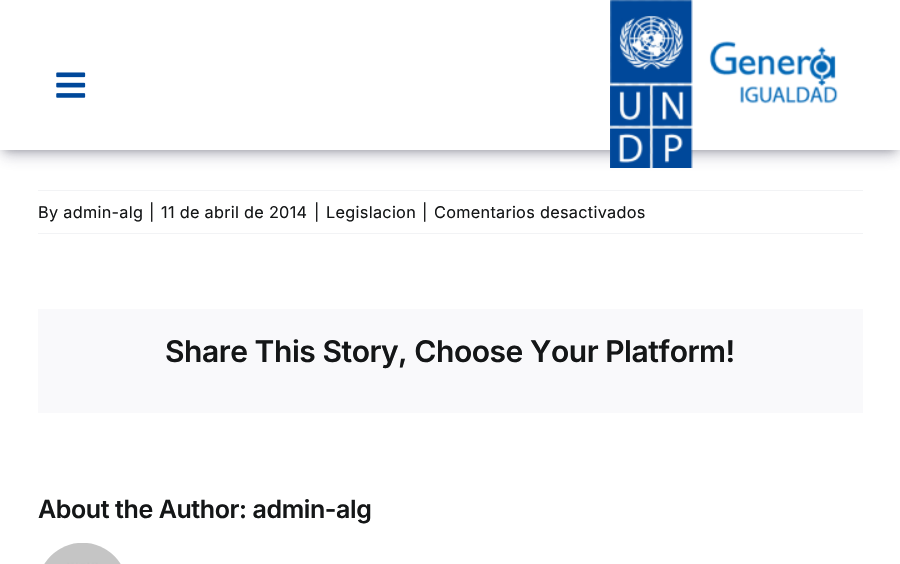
void draw(SkCanvas* canvas) {
    SkPaint paint;
    paint.setAntiAlias(true);
    auto face = [&](const char* family, int weight, float size, bool italic = false) {
        SkFontStyle style(weight, SkFontStyle::kNormal_Width,
            italic ? SkFontStyle::kItalic_Slant : SkFontStyle::kUpright_Slant);
        SkFont result(fontMgr->matchFamilyStyle(family, style), size);
        result.setSubpixel(true);
        return result;
    };
    auto writeSpaced = [&](const char* s, float x, float y, const SkFont& font, const SkPaint& ink, float letter, float word) {
        std::vector<SkGlyphID> glyphs(font.countText(s, strlen(s), SkTextEncoding::kUTF8));
        std::vector<float> xs(glyphs.size());
        font.textToGlyphs(s, strlen(s), SkTextEncoding::kUTF8, glyphs);
        font.getXPos(glyphs, xs, x);
        float extra = 0;
        for (size_t i = 0; i < glyphs.size(); i++) {
            xs[i] += extra;
            extra += letter + word * (glyphs[i] == font.unicharToGlyph(' '));
        }
        canvas->drawTextBlob(SkTextBlob::MakeFromPosHGlyphs(glyphs, xs, y, font), 0, 0, ink);
    };
    auto block = [&](float x, float y, float w, float h, SkColor color) {
        SkPaint ink(SkColor4f::FromColor(color));
        ink.setAntiAlias(true);
        canvas->drawRect(SkRect::MakeXYWH(x, y, w, h), ink);
    };
    auto paste = [&](const char* path, float x, float y, float w, float h) {
        auto image = SkImages::DeferredFromEncodedData(SkData::MakeFromFileName(path));
        canvas->drawImageRect(image, SkRect::MakeXYWH(x, y, w, h), SkSamplingOptions());
    };
    canvas->clear(SK_ColorWHITE);
    paint.setColor(SkColorSetARGB(77, 0, 0, 0));
    paint.setMaskFilter(SkMaskFilter::MakeBlur(kNormal_SkBlurStyle, 4.5f));
    canvas->drawRect(SkRect::MakeXYWH(4, 8, 892, 142), paint);
    paint.setMaskFilter(nullptr);
    paint.setColor(SkColorSetARGB(64, 50, 50, 93));
    paint.setMaskFilter(SkMaskFilter::MakeBlur(kNormal_SkBlurStyle, 7.5f));
    canvas->drawRect(SkRect::MakeXYWH(3, 10, 895, 145), paint);
    paint.setMaskFilter(nullptr);
    block(0, 0, 900, 150, SK_ColorWHITE);
    paste("pic1.png", 56, 72, 30, 26);
    paste("pic2.png", 610, 0, 228, 168);
    block(38, 190, 825, 1, SkColorSetRGB(242, 243, 245));
    block(38, 233, 825, 1, SkColorSetRGB(242, 243, 245));
    auto kFont1 = face("Inter", 400, 16.25f);
    paint.setColor(SkColorSetRGB(20, 22, 23));
    writeSpaced("By admin-alg", 38, 218, kFont1, paint, 0.3f, 0);
    writeSpaced("|", 149, 218, kFont1, paint, 0.3f, 0);
    writeSpaced("11 de abril de 2014", 161, 218, kFont1, paint, 0.3f, 0);
    writeSpaced("|", 314, 218, kFont1, paint, 0.3f, 0);
    writeSpaced("Legislacion", 326, 218, kFont1, paint, 0.3f, 0);
    writeSpaced("|", 422, 218, kFont1, paint, 0.3f, 0);
    writeSpaced("Comentarios desactivados", 434, 218, kFont1, paint, 0.3f, 0);
    block(38, 309, 825, 104, SkColorSetRGB(249, 249, 251));
    auto kFont2 = face("Inter", 600, 30);
    writeSpaced("Share This Story, Choose Your Platform!", 165, 362, kFont2, paint, -0.45f, 0);
    auto kFont3 = face("Inter", 600, 25);
    writeSpaced("About the Author: admin-alg", 38, 518, kFont3, paint, -0.4f, 0);
    paste("pic3.png", 44, 543, 77, 21);
}
